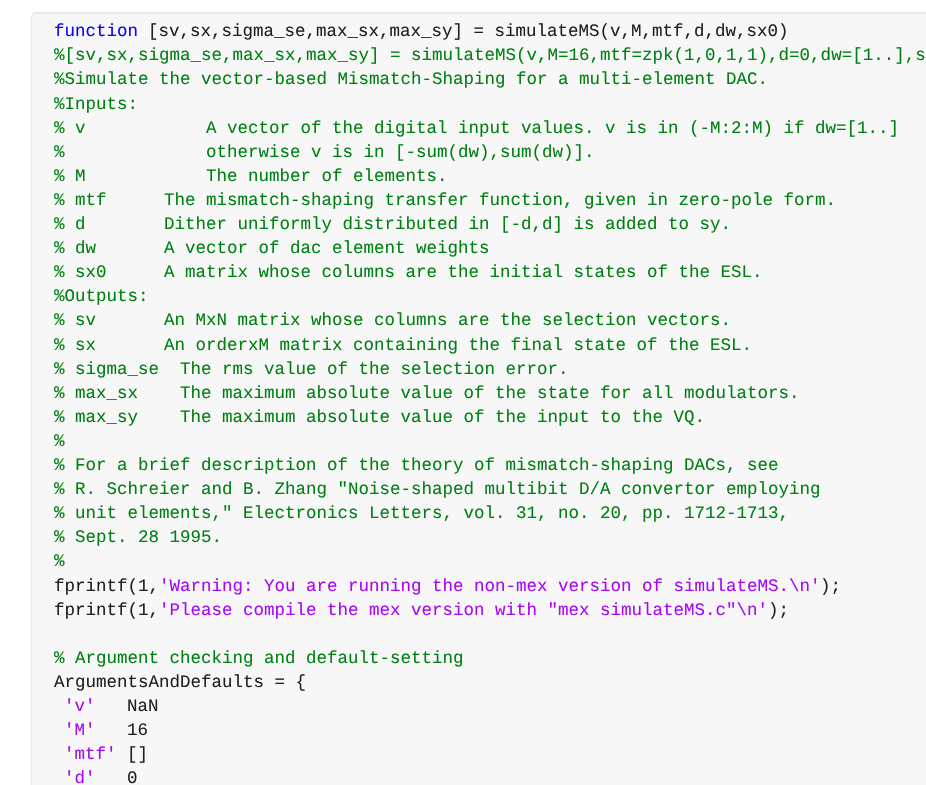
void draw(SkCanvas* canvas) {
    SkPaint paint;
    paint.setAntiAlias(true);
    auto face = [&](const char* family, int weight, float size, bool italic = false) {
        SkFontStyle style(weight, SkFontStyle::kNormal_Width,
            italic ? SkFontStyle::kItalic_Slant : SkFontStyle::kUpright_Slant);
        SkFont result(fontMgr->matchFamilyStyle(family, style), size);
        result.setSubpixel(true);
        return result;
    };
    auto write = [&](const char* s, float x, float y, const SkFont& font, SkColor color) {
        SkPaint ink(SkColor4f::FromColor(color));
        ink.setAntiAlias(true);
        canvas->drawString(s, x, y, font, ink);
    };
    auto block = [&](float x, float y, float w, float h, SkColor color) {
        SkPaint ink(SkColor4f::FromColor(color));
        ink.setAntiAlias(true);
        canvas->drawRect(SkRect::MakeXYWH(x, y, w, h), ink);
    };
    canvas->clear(SK_ColorWHITE);
    paint.setColor(SkColorSetRGB(247, 247, 247));
    canvas->drawPath(SkPathBuilder().moveTo(36, 13).lineTo(926, 13).lineTo(926, 785).lineTo(31, 785).lineTo(31, 18).cubicTo(31, 15, 33, 13, 36, 13).close().detach(), paint);
    paint.setColor(SkColorSetRGB(233, 233, 233));
    canvas->drawPath(SkPathBuilder(SkPathFillType::kEvenOdd).moveTo(36, 12).lineTo(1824, 12).cubicTo(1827, 12, 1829, 15, 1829, 18).lineTo(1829, 44).lineTo(31, 44).lineTo(31, 18).cubicTo(31, 15, 33, 12, 36, 12).close().moveTo(36, 14).lineTo(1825, 14).lineTo(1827, 16).lineTo(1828, 44).lineTo(32, 44).lineTo(32, 18).cubicTo(32, 15, 34, 14, 36, 14).close().detach(), paint);
    auto kFont1 = face("Liberation Mono", 400, 17.5f);
    write("function", 54, 36, kFont1, SkColorSetRGB(14, 0, 255));
    write("[sv,sx,sigma_se,max_sx,max_sy] = simulateMS(v,M,mtf,d,dw,sx0)", 148, 36, kFont1, SkColorSetRGB(33, 33, 33));
    block(31, 44, 1, 741, SkColorSetRGB(233, 233, 233));
    write("%[sv,sx,sigma_se,max_sx,max_sy] = simulateMS(v,M=16,mtf=zpk(1,0,1,1),d=0,dw=[1..],s", 54, 60, kFont1, SkColorSetRGB(0, 128, 19));
    write("%Simulate the vector-based Mismatch-Shaping for a multi-element DAC.", 54, 84, kFont1, SkColorSetRGB(0, 128, 19));
    write("%Inputs:", 54, 109, kFont1, SkColorSetRGB(0, 128, 19));
    write("% v", 54, 133, kFont1, SkColorSetRGB(0, 128, 19));
    write("A vector of the digital input values. v is in (-M:2:M) if dw=[1..]", 206, 133, kFont1, SkColorSetRGB(0, 128, 19));
    write("%", 54, 157, kFont1, SkColorSetRGB(0, 128, 19));
    write("otherwise v is in [-sum(dw),sum(dw)].", 206, 157, kFont1, SkColorSetRGB(0, 128, 19));
    write("% M", 54, 181, kFont1, SkColorSetRGB(0, 128, 19));
    write("The number of elements.", 206, 181, kFont1, SkColorSetRGB(0, 128, 19));
    write("% mtf", 54, 205, kFont1, SkColorSetRGB(0, 128, 19));
    write("The mismatch-shaping transfer function, given in zero-pole form.", 164, 205, kFont1, SkColorSetRGB(0, 128, 19));
    write("% d", 54, 229, kFont1, SkColorSetRGB(0, 128, 19));
    write("Dither uniformly distributed in [-d,d] is added to sy.", 164, 229, kFont1, SkColorSetRGB(0, 128, 19));
    write("% dw", 54, 253, kFont1, SkColorSetRGB(0, 128, 19));
    write("A vector of dac element weights", 164, 253, kFont1, SkColorSetRGB(0, 128, 19));
    write("% sx0", 54, 277, kFont1, SkColorSetRGB(0, 128, 19));
    write("A matrix whose columns are the initial states of the ESL.", 164, 277, kFont1, SkColorSetRGB(0, 128, 19));
    write("%Outputs:", 54, 301, kFont1, SkColorSetRGB(0, 128, 19));
    write("% sv", 54, 325, kFont1, SkColorSetRGB(0, 128, 19));
    write("An MxN matrix whose columns are the selection vectors.", 164, 325, kFont1, SkColorSetRGB(0, 128, 19));
    write("% sx", 54, 350, kFont1, SkColorSetRGB(0, 128, 19));
    write("An orderxM matrix containing the final state of the ESL.", 164, 350, kFont1, SkColorSetRGB(0, 128, 19));
    write("% sigma_se  The rms value of the selection error.", 54, 374, kFont1, SkColorSetRGB(0, 128, 19));
    write("% max_sx    The maximum absolute value of the state for all modulators.", 54, 398, kFont1, SkColorSetRGB(0, 128, 19));
    write("% max_sy    The maximum absolute value of the input to the VQ.", 54, 422, kFont1, SkColorSetRGB(0, 128, 19));
    write("%", 54, 446, kFont1, SkColorSetRGB(0, 128, 19));
    write("% For a brief description of the theory of mismatch-shaping DACs, see", 54, 470, kFont1, SkColorSetRGB(0, 128, 19));
    write("% R. Schreier and B. Zhang \"Noise-shaped multibit D/A convertor employing", 54, 494, kFont1, SkColorSetRGB(0, 128, 19));
    write("% unit elements,\" Electronics Letters, vol. 31, no. 20, pp. 1712-1713,", 54, 518, kFont1, SkColorSetRGB(0, 128, 19));
    write("% Sept. 28 1995.", 54, 542, kFont1, SkColorSetRGB(0, 128, 19));
    write("%", 54, 566, kFont1, SkColorSetRGB(0, 128, 19));
    write("fprintf(1,", 54, 591, kFont1, SkColorSetRGB(33, 33, 33));
    write("'Warning: You are running the non-mex version of simulateMS.\\n'", 159, 591, kFont1, SkColorSetRGB(167, 9, 245));
    write(");", 820, 591, kFont1, SkColorSetRGB(33, 33, 33));
    write("fprintf(1,", 54, 615, kFont1, SkColorSetRGB(33, 33, 33));
    write("'Please compile the mex version with \"mex simulateMS.c\"\\n'", 159, 615, kFont1, SkColorSetRGB(167, 9, 245));
    write(");", 768, 615, kFont1, SkColorSetRGB(33, 33, 33));
    write("% Argument checking and default-setting", 54, 663, kFont1, SkColorSetRGB(0, 128, 19));
    write("ArgumentsAndDefaults = {", 54, 687, kFont1, SkColorSetRGB(33, 33, 33));
    write("'v'", 64, 711, kFont1, SkColorSetRGB(167, 9, 245));
    write("NaN", 127, 711, kFont1, SkColorSetRGB(33, 33, 33));
    write("'M'", 64, 735, kFont1, SkColorSetRGB(167, 9, 245));
    write("16", 127, 735, kFont1, SkColorSetRGB(33, 33, 33));
    write("'mtf'", 64, 759, kFont1, SkColorSetRGB(167, 9, 245));
    write("[]", 127, 759, kFont1, SkColorSetRGB(33, 33, 33));
    write("'d'", 64, 783, kFont1, SkColorSetRGB(167, 9, 245));
    write("0", 127, 783, kFont1, SkColorSetRGB(33, 33, 33));
}
